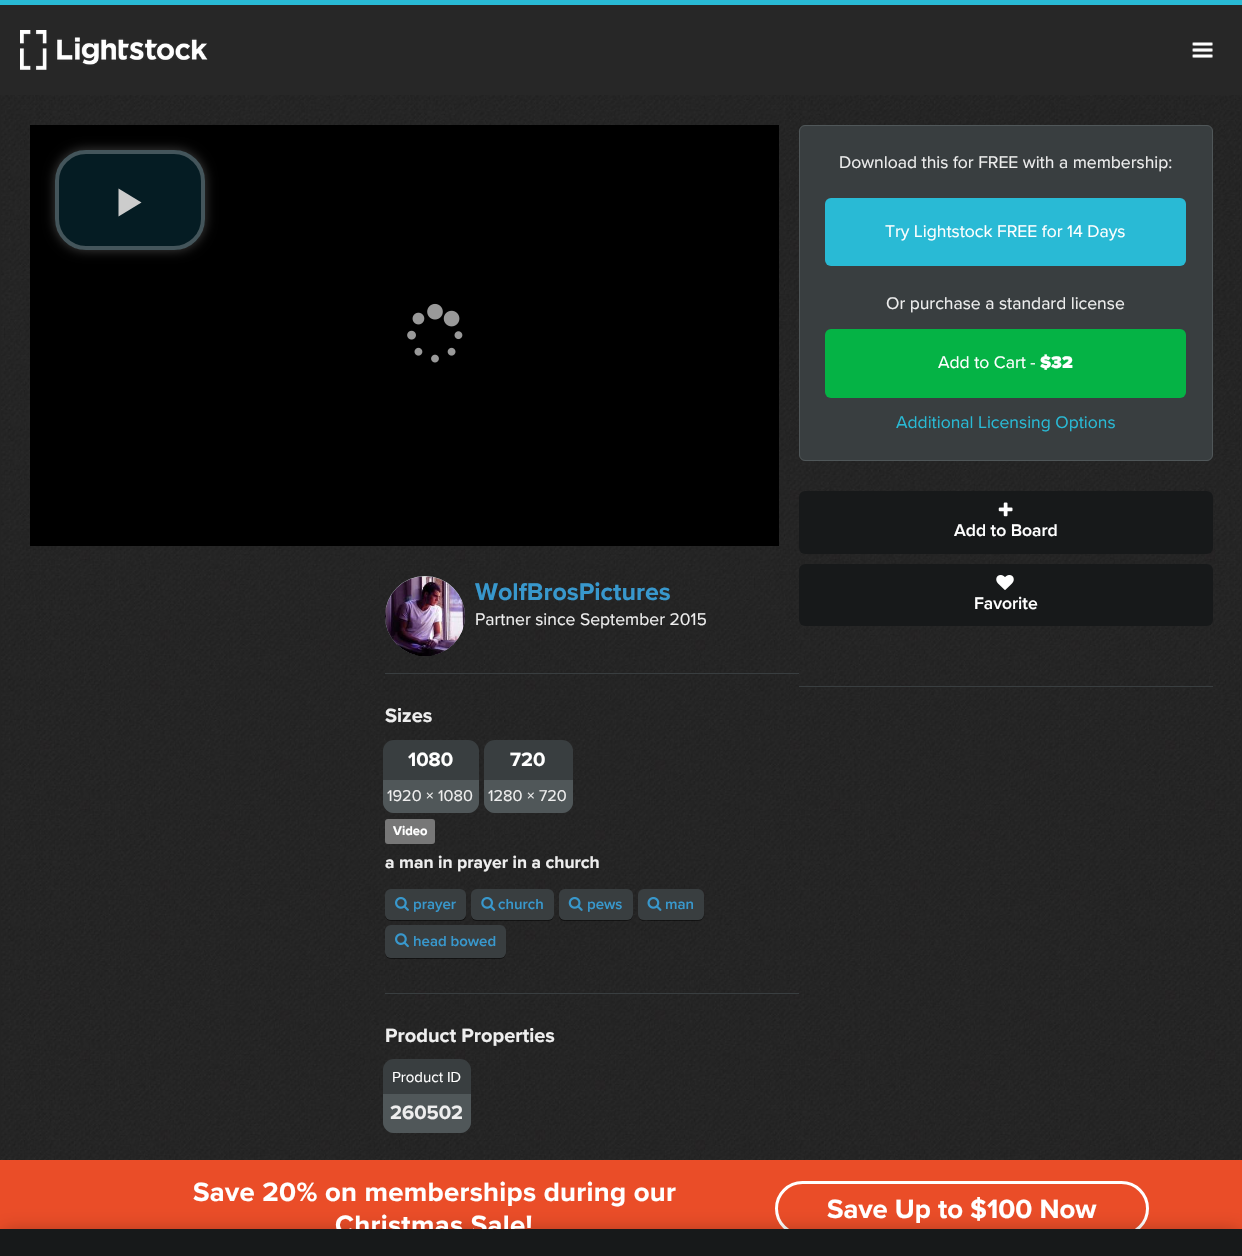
void draw(SkCanvas* canvas) {
    SkPaint paint;
    paint.setAntiAlias(true);
    auto face = [&](const char* family, int weight, float size, bool italic = false) {
        SkFontStyle style(weight, SkFontStyle::kNormal_Width,
            italic ? SkFontStyle::kItalic_Slant : SkFontStyle::kUpright_Slant);
        SkFont result(fontMgr->matchFamilyStyle(family, style), size);
        result.setSubpixel(true);
        return result;
    };
    auto write = [&](const char* s, float x, float y, const SkFont& font, SkColor color) {
        SkPaint ink(SkColor4f::FromColor(color));
        ink.setAntiAlias(true);
        canvas->drawString(s, x, y, font, ink);
    };
    auto writeSpaced = [&](const char* s, float x, float y, const SkFont& font, const SkPaint& ink, float letter, float word) {
        std::vector<SkGlyphID> glyphs(font.countText(s, strlen(s), SkTextEncoding::kUTF8));
        std::vector<float> xs(glyphs.size());
        font.textToGlyphs(s, strlen(s), SkTextEncoding::kUTF8, glyphs);
        font.getXPos(glyphs, xs, x);
        float extra = 0;
        for (size_t i = 0; i < glyphs.size(); i++) {
            xs[i] += extra;
            extra += letter + word * (glyphs[i] == font.unicharToGlyph(' '));
        }
        canvas->drawTextBlob(SkTextBlob::MakeFromPosHGlyphs(glyphs, xs, y, font), 0, 0, ink);
    };
    auto block = [&](float x, float y, float w, float h, SkColor color) {
        SkPaint ink(SkColor4f::FromColor(color));
        ink.setAntiAlias(true);
        canvas->drawRect(SkRect::MakeXYWH(x, y, w, h), ink);
    };
    auto card = [&](float x, float y, float w, float h, float radius, SkColor color) {
        SkPaint ink(SkColor4f::FromColor(color));
        ink.setAntiAlias(true);
        canvas->drawRoundRect(SkRect::MakeXYWH(x, y, w, h), radius, radius, ink);
    };
    auto paste = [&](const char* path, float x, float y, float w, float h) {
        auto image = SkImages::DeferredFromEncodedData(SkData::MakeFromFileName(path));
        canvas->drawImageRect(image, SkRect::MakeXYWH(x, y, w, h), SkSamplingOptions());
    };
    canvas->clear(SkColorSetRGB(36, 36, 36));
    paste("pic1.png", 1, 95, 1240, 1065);
    block(0, 5, 1242, 90, SkColorSetRGB(39, 39, 39));
    block(0, 0, 1242, 5, SkColorSetRGB(41, 186, 213));
    paste("pic2.png", 20, 30, 188, 40);
    paste("pic3.png", 1192, 42, 21, 16);
    block(30, 125, 749, 421, SK_ColorBLACK);
    canvas->save();
    canvas->clipPath(SkPathBuilder(SkPathFillType::kEvenOdd).moveTo(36, 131).lineTo(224, 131).lineTo(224, 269).lineTo(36, 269).close().moveTo(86, 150).lineTo(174, 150).cubicTo(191, 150, 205, 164, 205, 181).lineTo(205, 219).cubicTo(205, 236, 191, 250, 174, 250).lineTo(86, 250).cubicTo(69, 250, 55, 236, 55, 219).lineTo(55, 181).cubicTo(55, 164, 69, 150, 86, 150).close().detach(), true);
    paint.setColor(SkColorSetARGB(64, 255, 255, 255));
    paint.setMaskFilter(SkMaskFilter::MakeBlur(kNormal_SkBlurStyle, 6));
    canvas->drawRoundRect(SkRect::MakeXYWH(55, 150, 150, 100), 31, 31, paint);
    paint.setMaskFilter(nullptr);
    canvas->restore();
    card(55, 150, 150, 100, 31, SkColorSetARGB(179, 7, 40, 50));
    paint.setStyle(SkPaint::kStroke_Style);
    paint.setStrokeWidth(4);
    canvas->drawRoundRect(SkRect::MakeXYWH(57, 152, 146, 96), 29, 29, paint);
    paint.setStyle(SkPaint::kFill_Style);
    paint.setColor(SkColorSetRGB(204, 204, 204));
    canvas->drawPath(SkPathBuilder().moveTo(118.5f, 188.5f).lineTo(118.5f, 216.5f).lineTo(141.5f, 202.5f).close().detach(), paint);
    paste("pic4.png", 407, 303, 56, 60);
    block(799, 686, 414, 1, SkColorSetRGB(57, 62, 64));
    paint.setColor(SkColorSetRGB(57, 62, 64));
    canvas->drawRoundRect(SkRect::MakeXYWH(799.5f, 125.5f, 413, 335), 5.5f, 5.5f, paint);
    paint.setStyle(SkPaint::kStroke_Style);
    paint.setStrokeWidth(1);
    paint.setColor(SkColorSetRGB(80, 87, 89));
    canvas->drawRoundRect(SkRect::MakeXYWH(799.5f, 125.5f, 413, 335), 5.5f, 5.5f, paint);
    auto kFont1 = face("Proxima Nova", 400, 17.5f);
    write("Download this for FREE with a membership:", 839, 168, kFont1, SkColorSetRGB(238, 238, 238));
    card(825, 198, 361, 68, 6, SkColorSetRGB(41, 186, 213));
    write("Try Lightstock FREE for 14 Days", 885, 237, kFont1, SK_ColorWHITE);
    write("Or purchase a standard license", 886, 309, kFont1, SkColorSetRGB(238, 238, 238));
    card(825, 329, 361, 69, 6, SkColorSetRGB(5, 179, 69));
    write("Add to Cart -", 938, 368, kFont1, SK_ColorWHITE);
    auto kFont2 = face("Proxima Nova", 900, 17.5f);
    write("$32", 1040, 368, kFont2, SK_ColorWHITE);
    write("Additional Licensing Options", 896, 428, kFont1, SkColorSetRGB(41, 186, 213));
    card(799, 491, 414, 63, 6, SkColorSetRGB(23, 25, 26));
    paste("pic5.png", 998, 502, 15, 15);
    auto kFont3 = face("Proxima Nova", 600, 17.5f);
    write("Add to Board", 954, 536, kFont3, SK_ColorWHITE);
    card(799, 564, 414, 62, 6, SkColorSetRGB(23, 25, 26));
    paste("pic6.png", 996, 575, 18, 15);
    write("Favorite", 974, 609, kFont3, SK_ColorWHITE);
    block(385, 673, 414, 1, SkColorSetRGB(57, 62, 64));
    paint.setStyle(SkPaint::kFill_Style);
    paint.setColor(SkColorSetRGB(202, 212, 217));
    canvas->drawCircle(425, 616, 40, paint);
    paste("pic7.png", 385, 576, 80, 80);
    auto kFont4 = face("Proxima Nova", 700, 25);
    write("WolfBrosPictures", 475, 600, kFont4, SkColorSetRGB(56, 152, 205));
    write("Partner since September 2015", 475, 625, kFont1, SkColorSetRGB(238, 238, 238));
    auto kFont5 = face("Proxima Nova", 700, 20);
    write("Sizes", 385, 722, kFont5, SkColorSetRGB(238, 238, 238));
    card(383, 740, 96, 73, 11, SkColorSetRGB(57, 62, 64));
    write("1080", 408, 766, kFont5, SK_ColorWHITE);
    paint.setColor(SkColorSetRGB(80, 87, 89));
    canvas->drawPath(SkPathBuilder().moveTo(383, 780).lineTo(479, 780).lineTo(479, 802).cubicTo(479, 808, 474, 813, 468, 813).lineTo(394, 813).cubicTo(388, 813, 383, 808, 383, 802).close().detach(), paint);
    auto kFont6 = face("Proxima Nova", 400, 16.25f);
    write("1920 × 1080", 387, 801, kFont6, SkColorSetRGB(238, 238, 238));
    card(484, 740, 89, 73, 11, SkColorSetRGB(57, 62, 64));
    write("720", 510, 766, kFont5, SK_ColorWHITE);
    canvas->drawPath(SkPathBuilder().moveTo(484, 780).lineTo(573, 780).lineTo(573, 802).cubicTo(573, 808, 568, 813, 562, 813).lineTo(495, 813).cubicTo(489, 813, 484, 808, 484, 802).close().detach(), paint);
    write("1280 × 720", 488, 801, kFont6, SkColorSetRGB(238, 238, 238));
    block(385, 993, 414, 1, SkColorSetRGB(57, 62, 64));
    card(385, 819, 50, 25, 3, SkColorSetRGB(119, 119, 119));
    auto kFont7 = face("Proxima Nova", 700, 13);
    write("Video", 393, 835, kFont7, SK_ColorWHITE);
    auto kFont8 = face("Proxima Nova", 700, 17.5f);
    write("a man in prayer in a church", 385, 868, kFont8, SkColorSetRGB(238, 238, 238));
    paint.setColor(SkColorSetARGB(128, 0, 0, 0));
    canvas->drawPath(SkPathBuilder().moveTo(385, 914).lineTo(385, 915).cubicTo(385, 918, 388, 921, 391, 921).lineTo(460, 921).cubicTo(463, 921, 466, 919, 466, 916).cubicTo(465, 918, 463, 920, 460, 920).lineTo(391, 920).cubicTo(388, 920, 385, 917, 385, 914).close().detach(), paint);
    card(385, 889, 81, 31, 6, SkColorSetRGB(57, 62, 64));
    paste("pic8.png", 395, 897, 14, 14);
    auto kFont9 = face("Proxima Nova", 600, 15);
    write("prayer", 413, 909, kFont9, SkColorSetRGB(56, 152, 205));
    canvas->drawPath(SkPathBuilder().moveTo(471, 894).lineTo(471, 909).cubicTo(471, 923, 473, 921, 489, 921).lineTo(536, 921).cubicTo(552, 921, 554, 923, 554, 909).lineTo(554, 894).lineTo(554, 908).cubicTo(554, 922, 551, 920, 536, 920).lineTo(489, 920).cubicTo(474, 920, 471, 922, 471, 908).close().detach(), paint);
    card(471, 889, 83, 31, 6, SkColorSetRGB(57, 62, 64));
    paste("pic9.png", 481, 897, 15, 14);
    write("church", 498, 909, kFont9, SkColorSetRGB(56, 152, 205));
    canvas->drawPath(SkPathBuilder().moveTo(559, 916).cubicTo(559, 919, 562, 921, 565, 921).lineTo(627, 921).cubicTo(630, 921, 633, 918, 633, 915).lineTo(633, 896).lineTo(632, 893).lineTo(632, 914).cubicTo(632, 917, 630, 920, 626, 920).lineTo(565, 920).cubicTo(562, 920, 560, 918, 559, 916).close().detach(), paint);
    card(559, 889, 74, 31, 6, SkColorSetRGB(57, 62, 64));
    paste("pic10.png", 568, 897, 15, 14);
    write("pews", 587, 909, kFont9, SkColorSetRGB(56, 152, 205));
    canvas->drawPath(SkPathBuilder().moveTo(638, 917).cubicTo(639, 919, 641, 921, 644, 921).lineTo(698, 921).cubicTo(701, 921, 704, 918, 704, 915).lineTo(704, 894).lineTo(704, 908).cubicTo(704, 921, 702, 920, 689, 920).lineTo(653, 920).cubicTo(649, 920, 641, 922, 638, 917).close().detach(), paint);
    card(638, 889, 66, 31, 6, SkColorSetRGB(57, 62, 64));
    paste("pic11.png", 647, 897, 15, 14);
    write("man", 665, 909, kFont9, SkColorSetRGB(56, 152, 205));
    canvas->drawPath(SkPathBuilder().moveTo(385, 951).lineTo(385, 953).cubicTo(385, 956, 388, 959, 391, 959).lineTo(500, 959).cubicTo(503, 959, 506, 956, 506, 953).cubicTo(505, 956, 503, 958, 500, 958).lineTo(391, 958).cubicTo(388, 958, 385, 955, 385, 951).close().detach(), paint);
    card(385, 925, 121, 33, 6, SkColorSetRGB(57, 62, 64));
    paste("pic12.png", 395, 933, 14, 15);
    write("head bowed", 413, 946, kFont9, SkColorSetRGB(56, 152, 205));
    write("Product Properties", 385, 1042, kFont5, SkColorSetRGB(238, 238, 238));
    card(383, 1059, 88, 74, 11, SkColorSetRGB(57, 62, 64));
    auto kFont10 = face("Proxima Nova", 400, 15);
    write("Product ID", 392, 1082, kFont10, SK_ColorWHITE);
    paint.setColor(SkColorSetRGB(80, 87, 89));
    canvas->drawPath(SkPathBuilder().moveTo(383, 1094).lineTo(471, 1094).lineTo(471, 1122).cubicTo(471, 1128, 466, 1133, 460, 1133).lineTo(394, 1133).cubicTo(388, 1133, 383, 1128, 383, 1122).close().detach(), paint);
    write("260502", 390, 1119, kFont5, SkColorSetRGB(238, 238, 238));
    block(0, 1160, 1242, 69, SkColorSetRGB(234, 77, 40));
    paint.setStyle(SkPaint::kStroke_Style);
    paint.setStrokeWidth(3);
    paint.setColor(SK_ColorWHITE);
    canvas->drawRoundRect(SkRect::MakeXYWH(776.5f, 1182.5f, 371, 52), 26, 26, paint);
    paint.setStyle(SkPaint::kFill_Style);
    paint.setColor(SkColorSetARGB(89, 0, 0, 0));
    paint.setMaskFilter(SkMaskFilter::MakeBlur(kNormal_SkBlurStyle, 10));
    canvas->drawRect(SkRect::MakeXYWH(3, 1233, 1237, 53), paint);
    paint.setMaskFilter(nullptr);
    auto kFont11 = face("Proxima Nova", 700, 27.5f);
    paint.setColor(SK_ColorWHITE);
    writeSpaced("Christmas Sale!", 335, 1234, kFont11, paint, 0.3f, 0);
    block(0, 1229, 1242, 27, SkColorSetRGB(23, 25, 26));
    writeSpaced("Save 20% on memberships during our", 193, 1201, kFont11, paint, 0.3f, 0);
    write("Save Up to $100 Now", 827, 1218, kFont11, SK_ColorWHITE);
}
